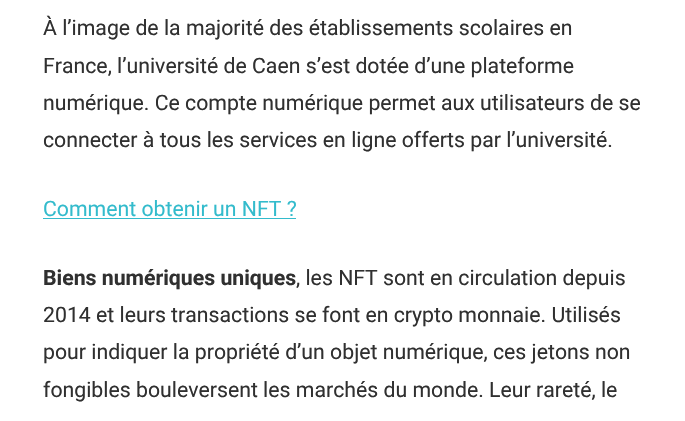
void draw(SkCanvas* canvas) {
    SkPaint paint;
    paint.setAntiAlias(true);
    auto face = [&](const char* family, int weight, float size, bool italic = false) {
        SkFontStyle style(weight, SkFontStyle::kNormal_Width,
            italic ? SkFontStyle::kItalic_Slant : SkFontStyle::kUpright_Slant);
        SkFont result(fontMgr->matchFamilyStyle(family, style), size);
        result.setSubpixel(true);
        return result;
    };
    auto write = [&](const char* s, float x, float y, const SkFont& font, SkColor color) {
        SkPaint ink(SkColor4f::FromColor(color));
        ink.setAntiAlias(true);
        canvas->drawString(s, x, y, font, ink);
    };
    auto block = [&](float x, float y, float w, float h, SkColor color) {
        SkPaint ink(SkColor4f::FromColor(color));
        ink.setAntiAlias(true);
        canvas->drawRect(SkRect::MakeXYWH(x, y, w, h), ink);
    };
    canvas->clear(SK_ColorWHITE);
    auto kFont1 = face("Roboto", 400, 21.25f);
    write("À l’image de la majorité des établissements scolaires en", 43, 35, kFont1, SkColorSetRGB(48, 48, 48));
    write("France, l’université de Caen s’est dotée d’une plateforme", 43, 73, kFont1, SkColorSetRGB(48, 48, 48));
    write("numérique. Ce compte numérique permet aux utilisateurs de se", 43, 110, kFont1, SkColorSetRGB(48, 48, 48));
    write("connecter à tous les services en ligne offerts par l’université.", 43, 147, kFont1, SkColorSetRGB(48, 48, 48));
    write("Comment obtenir un NFT ?", 43, 216, kFont1, SkColorSetRGB(51, 187, 204));
    block(43, 218, 253, 1, SkColorSetRGB(51, 187, 204));
    auto kFont2 = face("Roboto", 700, 21.25f);
    write("Biens numériques uniques", 43, 285, kFont2, SkColorSetRGB(48, 48, 48));
    write(", les NFT sont en circulation depuis", 296, 285, kFont1, SkColorSetRGB(48, 48, 48));
    write("2014 et leurs transactions se font en crypto monnaie. Utilisés", 43, 322, kFont1, SkColorSetRGB(48, 48, 48));
    write("pour indiquer la propriété d’un objet numérique, ces jetons non", 43, 359, kFont1, SkColorSetRGB(48, 48, 48));
    write("fongibles bouleversent les marchés du monde. Leur rareté, le", 43, 397, kFont1, SkColorSetRGB(48, 48, 48));
}
